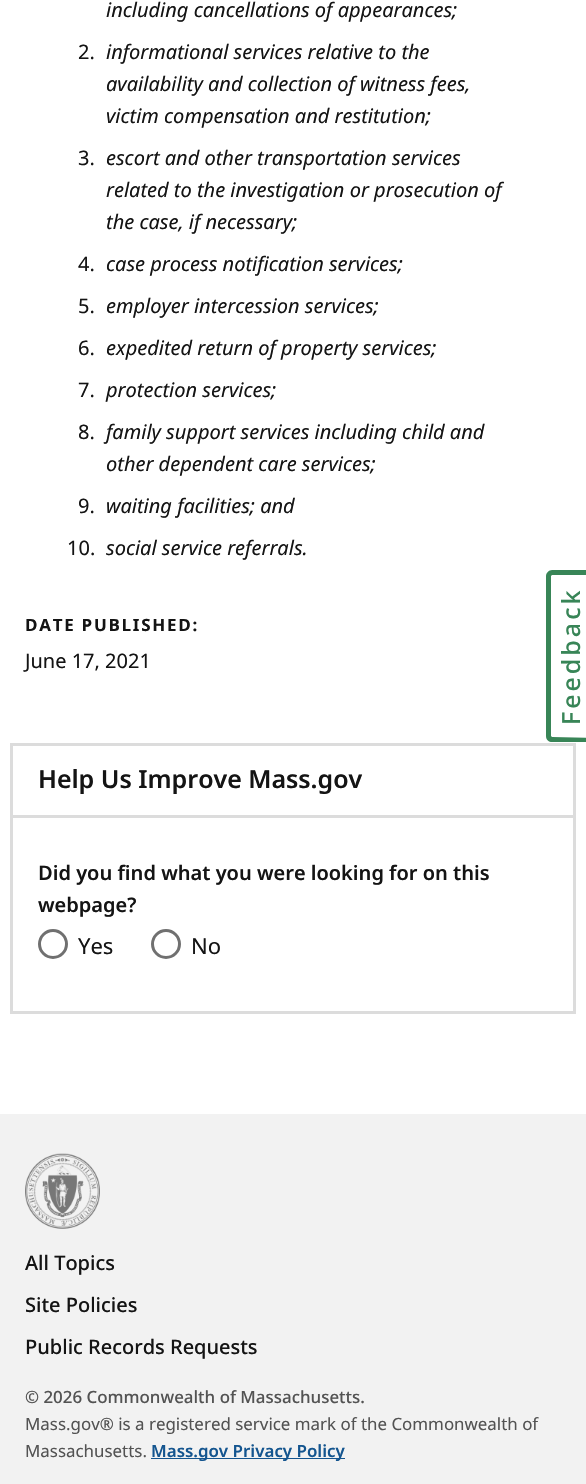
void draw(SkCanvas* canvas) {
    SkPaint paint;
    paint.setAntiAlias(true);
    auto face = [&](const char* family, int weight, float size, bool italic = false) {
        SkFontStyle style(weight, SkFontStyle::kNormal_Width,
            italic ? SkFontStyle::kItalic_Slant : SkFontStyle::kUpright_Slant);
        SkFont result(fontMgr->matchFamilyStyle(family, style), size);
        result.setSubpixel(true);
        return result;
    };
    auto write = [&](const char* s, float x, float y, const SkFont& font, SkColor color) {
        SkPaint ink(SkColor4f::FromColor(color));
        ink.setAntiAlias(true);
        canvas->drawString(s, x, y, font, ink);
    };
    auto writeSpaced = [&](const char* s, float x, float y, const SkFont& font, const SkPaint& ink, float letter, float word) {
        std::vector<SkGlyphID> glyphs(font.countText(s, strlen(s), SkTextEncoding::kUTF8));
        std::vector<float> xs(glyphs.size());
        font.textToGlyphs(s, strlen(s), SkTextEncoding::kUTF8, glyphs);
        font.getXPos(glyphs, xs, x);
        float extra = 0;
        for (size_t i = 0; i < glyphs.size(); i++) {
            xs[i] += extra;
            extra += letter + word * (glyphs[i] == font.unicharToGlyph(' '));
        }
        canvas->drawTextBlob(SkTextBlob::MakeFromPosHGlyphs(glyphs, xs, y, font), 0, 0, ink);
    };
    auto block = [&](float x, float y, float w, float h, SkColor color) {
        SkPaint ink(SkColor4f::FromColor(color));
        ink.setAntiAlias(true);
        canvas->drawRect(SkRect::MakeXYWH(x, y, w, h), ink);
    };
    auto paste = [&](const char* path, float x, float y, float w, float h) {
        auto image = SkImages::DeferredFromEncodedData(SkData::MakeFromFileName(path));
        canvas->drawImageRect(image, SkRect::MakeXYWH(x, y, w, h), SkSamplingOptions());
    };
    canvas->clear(SK_ColorWHITE);
    auto kFont1 = face("Noto Sans", 400, 20, true);
    write("including cancellations of appearances;", 106, 17, kFont1, SkColorSetRGB(20, 20, 20));
    auto kFont2 = face("Noto Sans", 400, 20);
    write("2.", 78, 59, kFont2, SkColorSetRGB(20, 20, 20));
    write("informational services relative to the", 106, 59, kFont1, SkColorSetRGB(20, 20, 20));
    write("availability and collection of witness fees,", 106, 91, kFont1, SkColorSetRGB(20, 20, 20));
    write("victim compensation and restitution;", 106, 123, kFont1, SkColorSetRGB(20, 20, 20));
    write("3.", 78, 165, kFont2, SkColorSetRGB(20, 20, 20));
    write("escort and other transportation services", 106, 165, kFont1, SkColorSetRGB(20, 20, 20));
    write("related to the investigation or prosecution of", 106, 197, kFont1, SkColorSetRGB(20, 20, 20));
    write("the case, if necessary;", 106, 229, kFont1, SkColorSetRGB(20, 20, 20));
    write("4.", 78, 271, kFont2, SkColorSetRGB(20, 20, 20));
    write("case process notification services;", 106, 271, kFont1, SkColorSetRGB(20, 20, 20));
    write("5.", 78, 313, kFont2, SkColorSetRGB(20, 20, 20));
    write("employer intercession services;", 106, 313, kFont1, SkColorSetRGB(20, 20, 20));
    write("6.", 78, 355, kFont2, SkColorSetRGB(20, 20, 20));
    write("expedited return of property services;", 106, 355, kFont1, SkColorSetRGB(20, 20, 20));
    write("7.", 78, 397, kFont2, SkColorSetRGB(20, 20, 20));
    write("protection services;", 106, 397, kFont1, SkColorSetRGB(20, 20, 20));
    write("8.", 78, 439, kFont2, SkColorSetRGB(20, 20, 20));
    write("family support services including child and", 106, 439, kFont1, SkColorSetRGB(20, 20, 20));
    write("other dependent care services;", 106, 471, kFont1, SkColorSetRGB(20, 20, 20));
    write("9.", 78, 513, kFont2, SkColorSetRGB(20, 20, 20));
    write("waiting facilities; and", 106, 513, kFont1, SkColorSetRGB(20, 20, 20));
    write("10.", 67, 555, kFont2, SkColorSetRGB(20, 20, 20));
    write("social service referrals.", 106, 555, kFont1, SkColorSetRGB(20, 20, 20));
    auto kFont3 = face("Noto Sans", 700, 16.9f);
    paint.setColor(SkColorSetRGB(20, 20, 20));
    writeSpaced("DATE PUBLISHED:", 25, 631, kFont3, paint, 1.75f, 0);
    write("June 17, 2021", 25, 668, kFont2, SkColorSetRGB(20, 20, 20));
    paint.setStyle(SkPaint::kStroke_Style);
    paint.setStrokeWidth(3);
    paint.setColor(SkColorSetRGB(220, 220, 220));
    canvas->drawRect(SkRect::MakeXYWH(11.5f, 744.5f, 563, 268), paint);
    block(13, 815, 561, 3, SkColorSetRGB(220, 220, 220));
    auto kFont4 = face("Noto Sans", 600, 25);
    write("Help Us Improve Mass.gov", 38, 788, kFont4, SkColorSetRGB(20, 20, 20));
    auto kFont5 = face("Noto Sans", 600, 20);
    write("Did you find what you were looking for on this", 38, 880, kFont5, SkColorSetRGB(20, 20, 20));
    write("webpage?", 38, 912, kFont5, SkColorSetRGB(20, 20, 20));
    paint.setColor(SkColorSetRGB(112, 112, 112));
    canvas->drawCircle(53, 944, 13.5f, paint);
    auto kFont6 = face("Noto Sans", 400, 22);
    write("Yes", 78, 954, kFont6, SkColorSetRGB(20, 20, 20));
    canvas->drawCircle(166, 944, 13.5f, paint);
    write("No", 191, 954, kFont6, SkColorSetRGB(20, 20, 20));
    paint.setStyle(SkPaint::kFill_Style);
    paint.setColor(SkColorSetRGB(56, 133, 87));
    canvas->drawPath(SkPathBuilder(SkPathFillType::kEvenOdd).moveTo(546, 736).lineTo(546, 576).cubicTo(546, 573, 549, 570, 552, 570).lineTo(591, 570).lineTo(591, 742).lineTo(552, 742).cubicTo(549, 742, 546, 740, 546, 736).close().moveTo(551, 736).lineTo(551, 576).cubicTo(551, 576, 552, 575, 552, 575).lineTo(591, 575).lineTo(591, 738).lineTo(552, 737).close().detach(), paint);
    auto kFont7 = face("Noto Sans", 500, 25);
    canvas->save();
    canvas->rotate(-90, 580, 725);
    writeSpaced("Feedback", 580, 725, kFont7, paint, 3, 0);
    canvas->restore();
    block(0, 1114, 586, 370, SkColorSetRGB(242, 242, 242));
    paste("pic1.png", 25, 1153, 75, 76);
    auto kFont8 = face("Noto Sans", 500, 20);
    write("All Topics", 25, 1270, kFont8, SkColorSetRGB(20, 20, 20));
    write("Site Policies", 25, 1312, kFont8, SkColorSetRGB(20, 20, 20));
    write("Public Records Requests", 25, 1354, kFont8, SkColorSetRGB(20, 20, 20));
    auto kFont9 = face("Noto Sans", 500, 16.9f);
    write("© 2026 Commonwealth of Massachusetts.", 25, 1403, kFont9, SkColorSetRGB(83, 83, 83));
    auto kFont10 = face("Noto Sans", 400, 16.9f);
    write("Mass.gov® is a registered service mark of the Commonwealth of", 25, 1430, kFont10, SkColorSetRGB(83, 83, 83));
    write("Massachusetts.", 25, 1457, kFont10, SkColorSetRGB(83, 83, 83));
    block(151, 1458, 194, 1, SkColorSetRGB(20, 85, 143));
    auto kFont11 = face("Noto Sans", 600, 16.9f);
    write("Mass.gov Privacy Policy", 151, 1457, kFont11, SkColorSetRGB(20, 85, 143));
}
